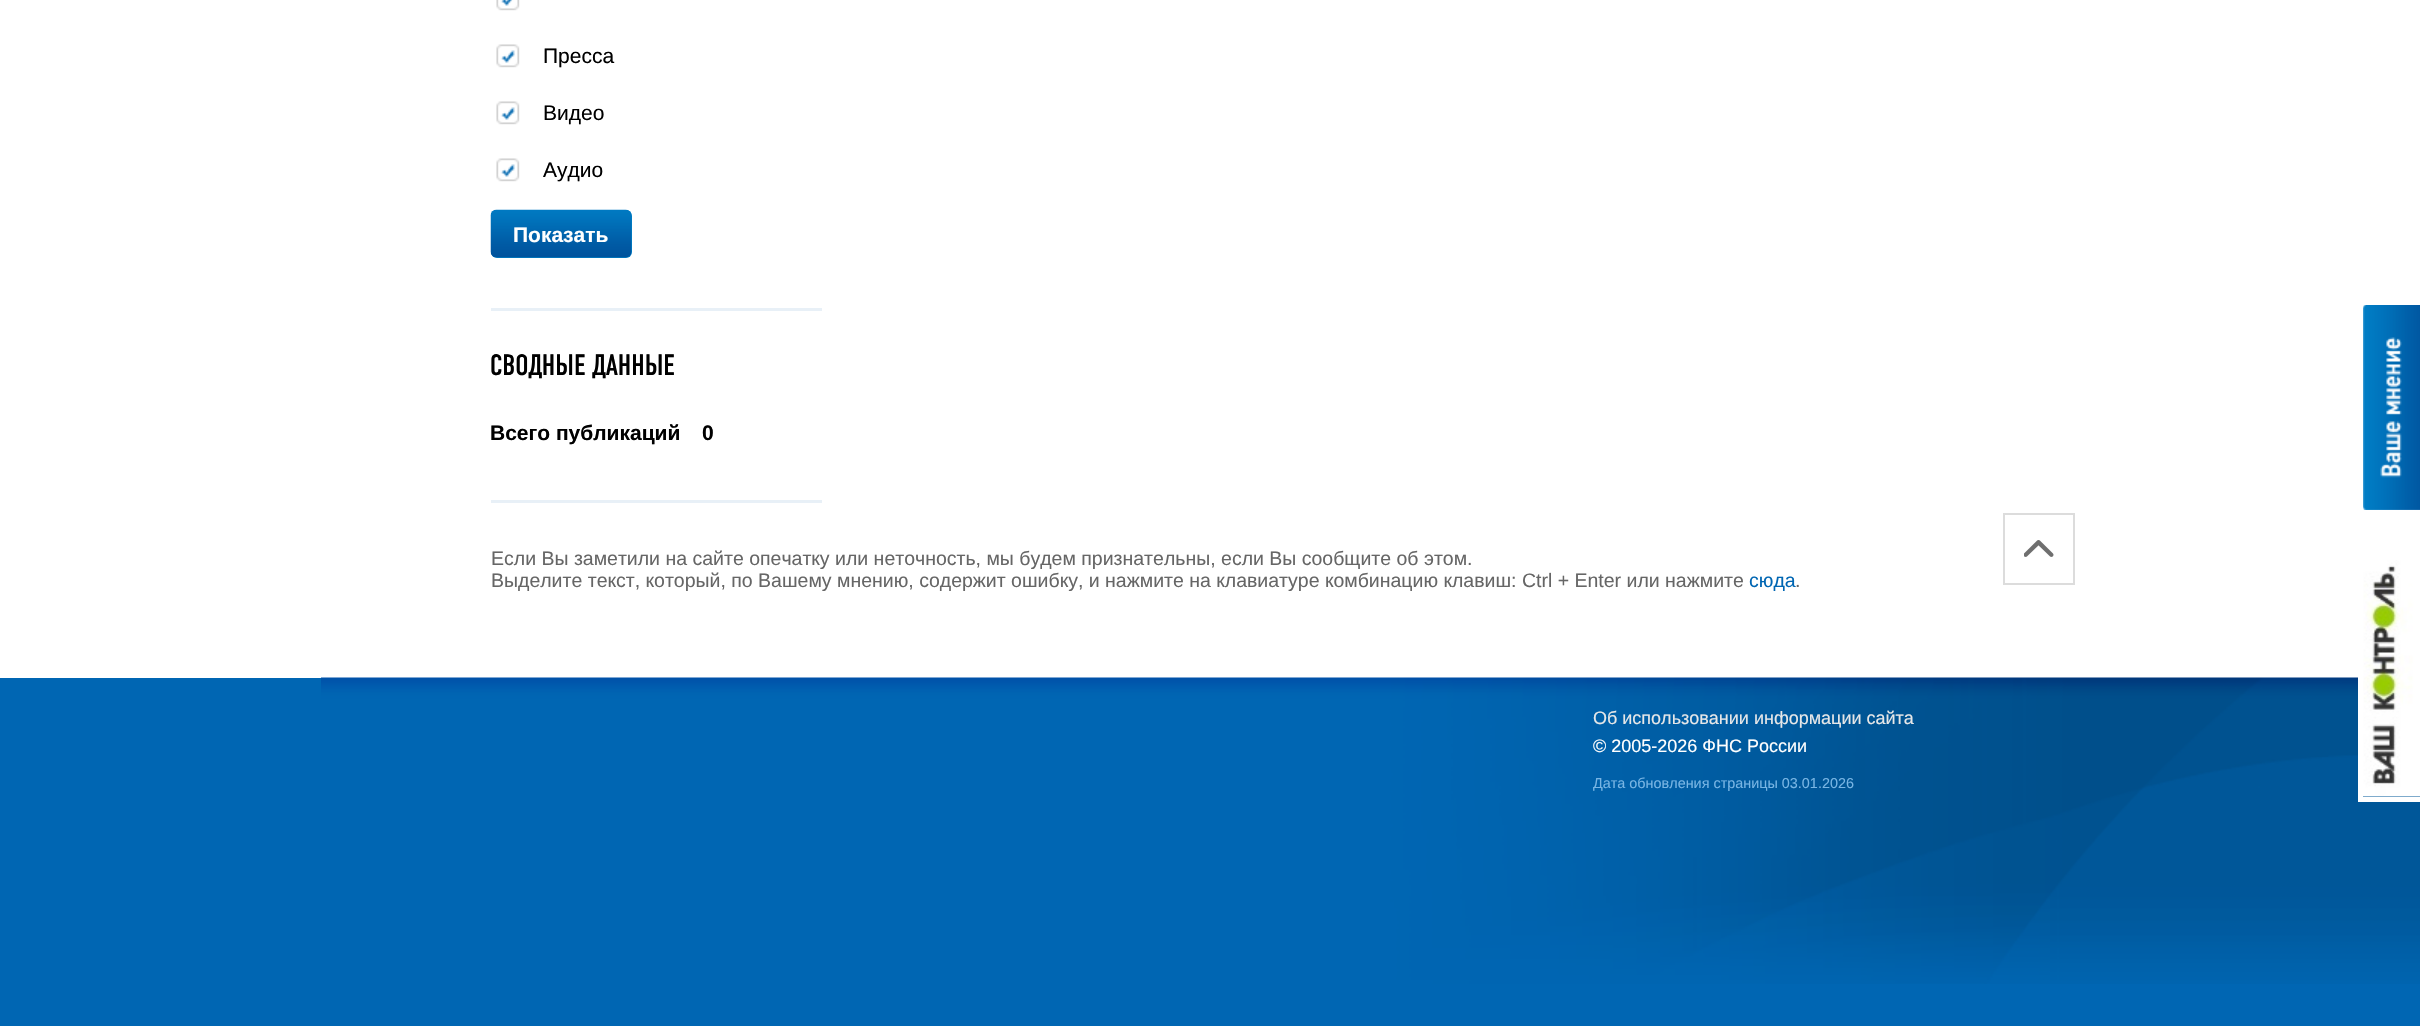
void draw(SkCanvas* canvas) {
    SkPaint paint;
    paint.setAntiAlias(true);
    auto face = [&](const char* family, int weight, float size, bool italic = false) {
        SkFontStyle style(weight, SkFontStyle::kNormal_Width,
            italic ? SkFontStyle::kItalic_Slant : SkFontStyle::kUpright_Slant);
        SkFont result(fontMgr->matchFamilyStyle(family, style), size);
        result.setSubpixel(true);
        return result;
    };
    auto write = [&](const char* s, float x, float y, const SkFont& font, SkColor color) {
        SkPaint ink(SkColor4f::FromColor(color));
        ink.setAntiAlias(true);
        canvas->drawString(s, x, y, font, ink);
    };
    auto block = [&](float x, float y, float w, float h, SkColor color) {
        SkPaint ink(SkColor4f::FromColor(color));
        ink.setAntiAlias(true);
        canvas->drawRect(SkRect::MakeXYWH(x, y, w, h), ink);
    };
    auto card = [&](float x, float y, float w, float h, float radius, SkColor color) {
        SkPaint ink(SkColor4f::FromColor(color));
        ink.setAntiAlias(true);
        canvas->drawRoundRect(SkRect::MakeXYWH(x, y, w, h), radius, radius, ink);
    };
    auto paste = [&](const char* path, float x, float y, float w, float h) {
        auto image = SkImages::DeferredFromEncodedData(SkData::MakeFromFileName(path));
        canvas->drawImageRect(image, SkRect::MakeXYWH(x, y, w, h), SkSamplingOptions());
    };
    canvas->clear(SK_ColorWHITE);
    block(491, 308, 331, 3, SkColorSetRGB(232, 240, 247));
    paste("pic1.png", 496, 0, 24, 11);
    paste("pic2.png", 496, 44, 24, 24);
    auto kFont1 = face("Liberation Sans", 400, 21);
    write("Пресса", 543, 63, kFont1, SK_ColorBLACK);
    paste("pic2.png", 496, 101, 24, 24);
    write("Видео", 543, 120, kFont1, SK_ColorBLACK);
    paste("pic2.png", 496, 158, 24, 24);
    write("Аудио", 543, 177, kFont1, SK_ColorBLACK);
    card(491, 210, 141, 48, 6, SkColorSetRGB(0, 125, 197));
    paste("pic3.png", 490, 209, 142, 49);
    auto kFont2 = face("Liberation Sans", 700, 21);
    write("Показать", 513, 242, kFont2, SK_ColorWHITE);
    block(491, 500, 331, 3, SkColorSetRGB(232, 240, 247));
    auto kFont3 = face("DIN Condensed", 400, 29.5f);
    write("СВОДНЫЕ ДАННЫЕ", 490, 375, kFont3, SK_ColorBLACK);
    write("Всего публикаций", 490, 440, kFont2, SK_ColorBLACK);
    write("0", 702, 440, kFont2, SK_ColorBLACK);
    auto kFont4 = face("Liberation Sans", 400, 19.5f);
    write("Если Вы заметили на сайте опечатку или неточность, мы будем признательны, если Вы сообщите об этом.", 491, 565, kFont4, SkColorSetRGB(102, 102, 102));
    write("Выделите текст, который, по Вашему мнению, содержит ошибку, и нажмите на клавиатуре комбинацию клавиш: Ctrl + Enter или нажмите", 491, 587, kFont4, SkColorSetRGB(102, 102, 102));
    write("сюда", 1749, 587, kFont4, SkColorSetRGB(0, 102, 179));
    write(".", 1795, 587, kFont4, SkColorSetRGB(102, 102, 102));
    block(0, 678, 2420, 348, SkColorSetRGB(0, 102, 179));
    paste("pic4.png", 321, 677, 2099, 307);
    auto kFont5 = face("Liberation Sans", 400, 18);
    write("Об использовании информации сайта", 1593, 724, kFont5, SkColorSetRGB(230, 231, 232));
    write("© 2005-2026 ФНС России", 1593, 752, kFont5, SK_ColorWHITE);
    auto kFont6 = face("Liberation Sans", 400, 14.4f);
    write("Дата обновления страницы 03.01.2026", 1593, 788, kFont6, SkColorSetRGB(120, 181, 228));
    paste("pic5.png", 2363, 305, 57, 205);
    paste("pic6.png", 2024, 540, 30, 17);
    paint.setStyle(SkPaint::kStroke_Style);
    paint.setStrokeWidth(2);
    paint.setColor(SkColorSetRGB(220, 220, 220));
    canvas->drawRect(SkRect::MakeXYWH(2004, 514, 70, 70), paint);
    paste("pic7.png", 2363, 560, 57, 237);
    block(2358, 797, 62, 5, SK_ColorWHITE);
    block(2358, 677, 5, 124, SK_ColorWHITE);
}
